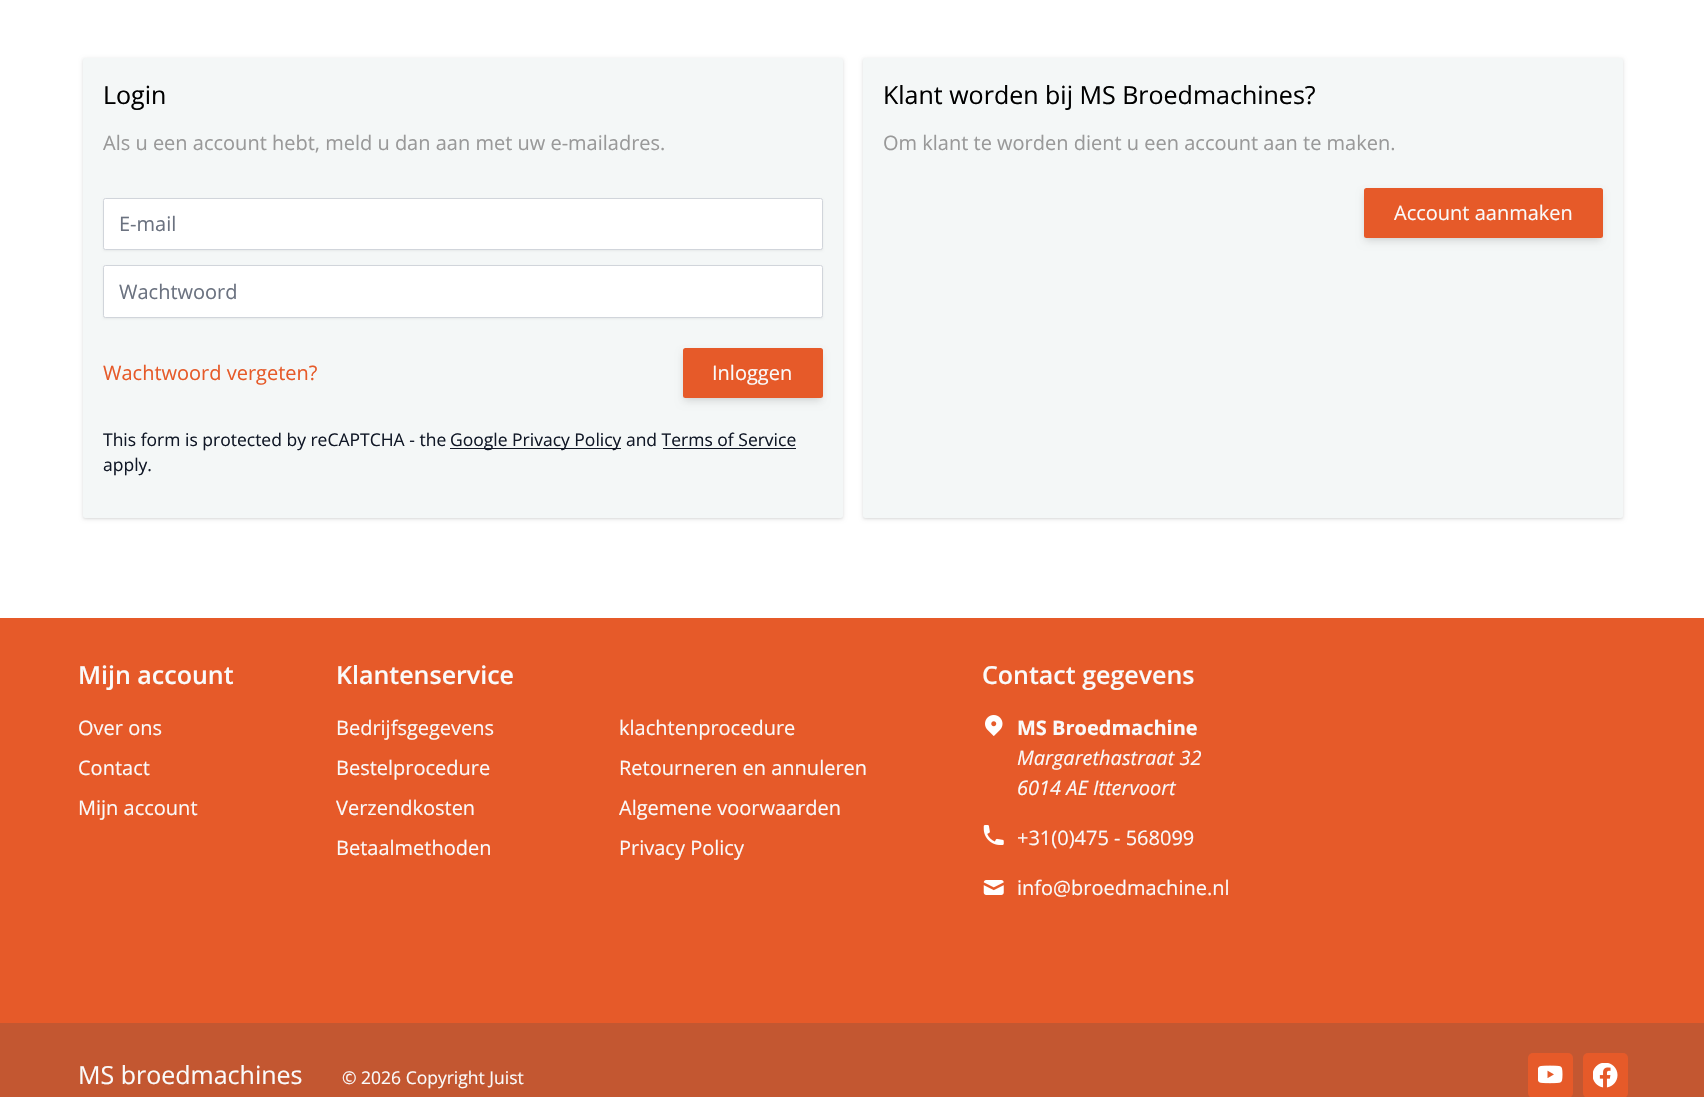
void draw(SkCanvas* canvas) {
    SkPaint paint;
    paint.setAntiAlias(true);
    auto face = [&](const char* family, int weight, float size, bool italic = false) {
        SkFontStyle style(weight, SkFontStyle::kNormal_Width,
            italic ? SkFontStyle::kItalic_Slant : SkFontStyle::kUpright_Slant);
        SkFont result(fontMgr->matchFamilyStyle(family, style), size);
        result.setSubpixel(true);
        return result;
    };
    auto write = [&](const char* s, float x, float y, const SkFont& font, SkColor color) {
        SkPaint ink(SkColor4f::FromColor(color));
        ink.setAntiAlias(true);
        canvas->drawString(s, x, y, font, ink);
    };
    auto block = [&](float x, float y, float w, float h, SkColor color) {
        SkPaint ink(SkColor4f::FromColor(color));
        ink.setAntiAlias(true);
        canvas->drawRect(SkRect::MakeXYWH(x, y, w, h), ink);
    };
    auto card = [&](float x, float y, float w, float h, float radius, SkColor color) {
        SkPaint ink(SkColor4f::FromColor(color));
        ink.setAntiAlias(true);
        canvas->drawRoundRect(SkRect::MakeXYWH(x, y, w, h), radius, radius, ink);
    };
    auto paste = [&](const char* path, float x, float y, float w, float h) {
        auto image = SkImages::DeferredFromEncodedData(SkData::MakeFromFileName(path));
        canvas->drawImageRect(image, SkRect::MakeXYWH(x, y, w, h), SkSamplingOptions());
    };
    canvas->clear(SK_ColorWHITE);
    paint.setColor(SkColorSetARGB(15, 0, 0, 0));
    paint.setMaskFilter(SkMaskFilter::MakeBlur(kNormal_SkBlurStyle, 1));
    canvas->drawRoundRect(SkRect::MakeXYWH(83, 59, 760, 460), 2.5f, 2.5f, paint);
    paint.setMaskFilter(nullptr);
    paint.setColor(SkColorSetARGB(26, 0, 0, 0));
    paint.setMaskFilter(SkMaskFilter::MakeBlur(kNormal_SkBlurStyle, 2));
    canvas->drawRoundRect(SkRect::MakeXYWH(83, 59, 760, 460), 2.5f, 2.5f, paint);
    paint.setMaskFilter(nullptr);
    card(83, 58, 760, 460, 2.5f, SkColorSetRGB(244, 247, 247));
    auto kFont1 = face("Open Sans", 400, 25);
    write("Login", 103, 104, kFont1, SK_ColorBLACK);
    auto kFont2 = face("Open Sans", 400, 20);
    write("Als u een account hebt, meld u dan aan met uw e-mailadres.", 103, 150, kFont2, SkColorSetRGB(153, 153, 153));
    paint.setColor(SkColorSetARGB(13, 0, 0, 0));
    paint.setMaskFilter(SkMaskFilter::MakeBlur(kNormal_SkBlurStyle, 1));
    canvas->drawRoundRect(SkRect::MakeXYWH(103, 199, 720, 52), 2.5f, 2.5f, paint);
    paint.setMaskFilter(nullptr);
    paint.setColor(SK_ColorWHITE);
    canvas->drawRoundRect(SkRect::MakeXYWH(103.5f, 198.5f, 719, 51), 2, 2, paint);
    paint.setStyle(SkPaint::kStroke_Style);
    paint.setStrokeWidth(1);
    paint.setColor(SkColorSetRGB(209, 213, 219));
    canvas->drawRoundRect(SkRect::MakeXYWH(103.5f, 198.5f, 719, 51), 2, 2, paint);
    write("E-mail", 119, 231, kFont2, SkColorSetRGB(107, 114, 128));
    paint.setStyle(SkPaint::kFill_Style);
    paint.setColor(SkColorSetARGB(13, 0, 0, 0));
    paint.setMaskFilter(SkMaskFilter::MakeBlur(kNormal_SkBlurStyle, 1));
    canvas->drawRoundRect(SkRect::MakeXYWH(103, 266, 720, 53), 2.5f, 2.5f, paint);
    paint.setMaskFilter(nullptr);
    paint.setColor(SK_ColorWHITE);
    canvas->drawRoundRect(SkRect::MakeXYWH(103.5f, 265.5f, 719, 52), 2, 2, paint);
    paint.setStyle(SkPaint::kStroke_Style);
    paint.setColor(SkColorSetRGB(209, 213, 219));
    canvas->drawRoundRect(SkRect::MakeXYWH(103.5f, 265.5f, 719, 52), 2, 2, paint);
    write("Wachtwoord", 119, 299, kFont2, SkColorSetRGB(107, 114, 128));
    write("Wachtwoord vergeten?", 103, 380, kFont2, SkColorSetRGB(230, 90, 41));
    paint.setStyle(SkPaint::kFill_Style);
    paint.setColor(SkColorSetARGB(15, 0, 0, 0));
    paint.setMaskFilter(SkMaskFilter::MakeBlur(kNormal_SkBlurStyle, 2.5f));
    canvas->drawRoundRect(SkRect::MakeXYWH(684, 351, 137, 48), 1, 1, paint);
    paint.setMaskFilter(nullptr);
    paint.setColor(SkColorSetARGB(26, 0, 0, 0));
    paint.setMaskFilter(SkMaskFilter::MakeBlur(kNormal_SkBlurStyle, 4));
    canvas->drawRoundRect(SkRect::MakeXYWH(684, 354, 137, 47), 1, 1, paint);
    paint.setMaskFilter(nullptr);
    card(683, 348, 140, 50, 2.5f, SkColorSetRGB(230, 90, 41));
    write("Inloggen", 712, 380, kFont2, SkColorSetRGB(250, 250, 250));
    auto kFont3 = face("Open Sans", 400, 17.5f);
    write("This form is protected by reCAPTCHA - the", 103, 446, kFont3, SkColorSetRGB(17, 24, 39));
    block(450, 448, 171, 1, SkColorSetRGB(17, 24, 39));
    write("Google Privacy Policy and Terms of Service", 450, 446, kFont3, SkColorSetRGB(17, 24, 39));
    block(663, 448, 133, 1, SkColorSetRGB(17, 24, 39));
    write("apply.", 103, 471, kFont3, SkColorSetRGB(17, 24, 39));
    paint.setColor(SkColorSetARGB(15, 0, 0, 0));
    paint.setMaskFilter(SkMaskFilter::MakeBlur(kNormal_SkBlurStyle, 1));
    canvas->drawRoundRect(SkRect::MakeXYWH(863, 59, 760, 460), 2.5f, 2.5f, paint);
    paint.setMaskFilter(nullptr);
    paint.setColor(SkColorSetARGB(26, 0, 0, 0));
    paint.setMaskFilter(SkMaskFilter::MakeBlur(kNormal_SkBlurStyle, 2));
    canvas->drawRoundRect(SkRect::MakeXYWH(863, 59, 760, 460), 2.5f, 2.5f, paint);
    paint.setMaskFilter(nullptr);
    card(863, 58, 760, 460, 2.5f, SkColorSetRGB(244, 247, 247));
    write("Klant worden bij MS Broedmachines?", 883, 104, kFont1, SK_ColorBLACK);
    write("Om klant te worden dient u een account aan te maken.", 883, 150, kFont2, SkColorSetRGB(153, 153, 153));
    paint.setColor(SkColorSetARGB(15, 0, 0, 0));
    paint.setMaskFilter(SkMaskFilter::MakeBlur(kNormal_SkBlurStyle, 2.5f));
    canvas->drawRoundRect(SkRect::MakeXYWH(1365, 191, 236, 48), 1, 1, paint);
    paint.setMaskFilter(nullptr);
    paint.setColor(SkColorSetARGB(26, 0, 0, 0));
    paint.setMaskFilter(SkMaskFilter::MakeBlur(kNormal_SkBlurStyle, 4));
    canvas->drawRoundRect(SkRect::MakeXYWH(1365, 194, 236, 47), 1, 1, paint);
    paint.setMaskFilter(nullptr);
    card(1364, 188, 239, 50, 2.5f, SkColorSetRGB(230, 90, 41));
    write("Account aanmaken", 1394, 220, kFont2, SkColorSetRGB(250, 250, 250));
    block(0, 618, 1704, 405, SkColorSetRGB(230, 90, 41));
    auto kFont4 = face("Open Sans", 600, 25);
    write("Mijn account", 78, 684, kFont4, SkColorSetRGB(250, 250, 250));
    write("Over ons", 78, 735, kFont2, SkColorSetRGB(250, 250, 250));
    write("Contact", 78, 775, kFont2, SkColorSetRGB(250, 250, 250));
    write("Mijn account", 78, 815, kFont2, SkColorSetRGB(250, 250, 250));
    write("Klantenservice", 336, 684, kFont4, SkColorSetRGB(250, 250, 250));
    write("Bedrijfsgegevens", 336, 735, kFont2, SkColorSetRGB(250, 250, 250));
    write("klachtenprocedure", 619, 735, kFont2, SkColorSetRGB(250, 250, 250));
    write("Bestelprocedure", 336, 775, kFont2, SkColorSetRGB(250, 250, 250));
    write("Retourneren en annuleren", 619, 775, kFont2, SkColorSetRGB(250, 250, 250));
    write("Verzendkosten", 336, 815, kFont2, SkColorSetRGB(250, 250, 250));
    write("Algemene voorwaarden", 619, 815, kFont2, SkColorSetRGB(250, 250, 250));
    write("Betaalmethoden", 336, 855, kFont2, SkColorSetRGB(250, 250, 250));
    write("Privacy Policy", 619, 855, kFont2, SkColorSetRGB(250, 250, 250));
    write("Contact gegevens", 982, 684, kFont4, SkColorSetRGB(250, 250, 250));
    paste("pic1.png", 985, 715, 18, 21);
    auto kFont5 = face("Open Sans", 700, 20);
    write("MS Broedmachine", 1017, 735, kFont5, SkColorSetRGB(250, 250, 250));
    auto kFont6 = face("Open Sans", 400, 20, true);
    write("Margarethastraat 32", 1017, 765, kFont6, SkColorSetRGB(250, 250, 250));
    write("6014 AE Ittervoort", 1017, 795, kFont6, SkColorSetRGB(250, 250, 250));
    paste("pic2.png", 983, 825, 21, 20);
    write("+31(0)475 - 568099", 1017, 845, kFont2, SkColorSetRGB(250, 250, 250));
    paste("pic3.png", 983, 880, 21, 15);
    write("info@broedmachine.nl", 1017, 895, kFont2, SkColorSetRGB(250, 250, 250));
    block(0, 1023, 1704, 74, SkColorSetRGB(195, 87, 49));
    write("MS broedmachines", 78, 1084, kFont1, SkColorSetRGB(250, 250, 250));
    write("© 2026 Copyright Juist", 342, 1084, kFont3, SkColorSetRGB(250, 250, 250));
    card(1528, 1053, 45, 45, 5, SkColorSetRGB(230, 90, 41));
    paste("pic4.png", 1538, 1065, 25, 19);
    card(1583, 1053, 45, 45, 5, SkColorSetRGB(230, 90, 41));
    paste("pic5.png", 1593, 1063, 25, 25);
}
